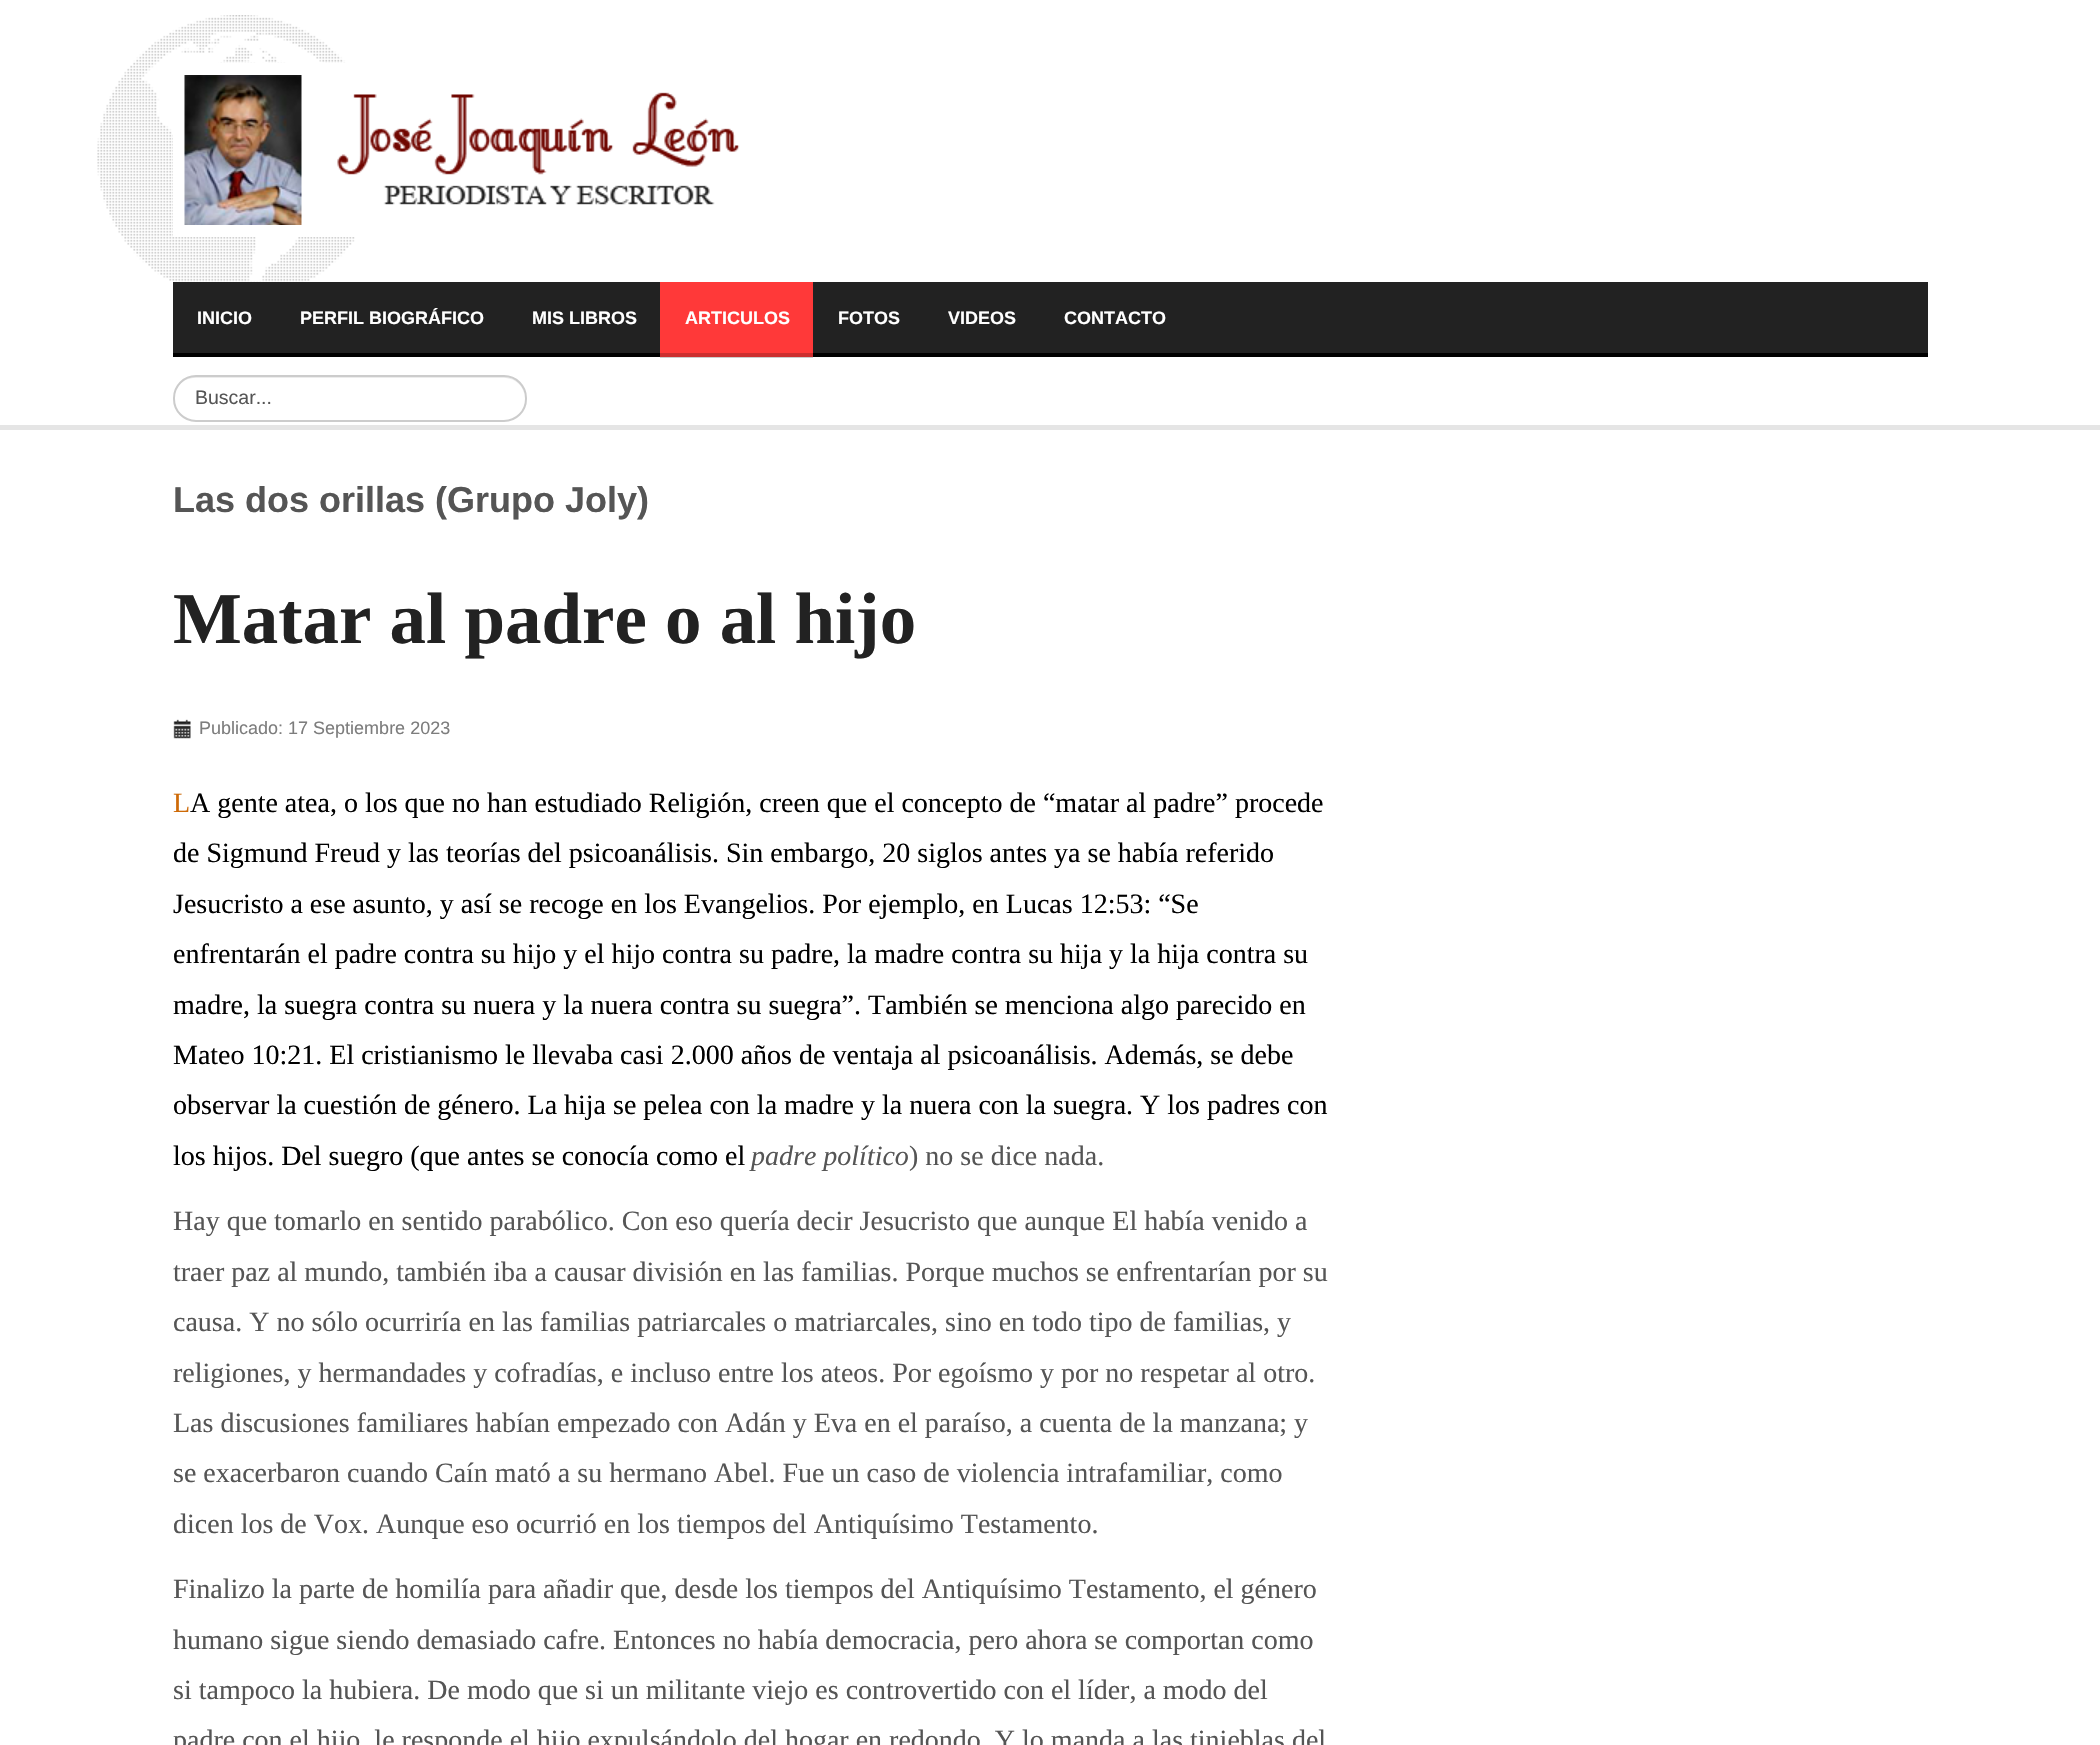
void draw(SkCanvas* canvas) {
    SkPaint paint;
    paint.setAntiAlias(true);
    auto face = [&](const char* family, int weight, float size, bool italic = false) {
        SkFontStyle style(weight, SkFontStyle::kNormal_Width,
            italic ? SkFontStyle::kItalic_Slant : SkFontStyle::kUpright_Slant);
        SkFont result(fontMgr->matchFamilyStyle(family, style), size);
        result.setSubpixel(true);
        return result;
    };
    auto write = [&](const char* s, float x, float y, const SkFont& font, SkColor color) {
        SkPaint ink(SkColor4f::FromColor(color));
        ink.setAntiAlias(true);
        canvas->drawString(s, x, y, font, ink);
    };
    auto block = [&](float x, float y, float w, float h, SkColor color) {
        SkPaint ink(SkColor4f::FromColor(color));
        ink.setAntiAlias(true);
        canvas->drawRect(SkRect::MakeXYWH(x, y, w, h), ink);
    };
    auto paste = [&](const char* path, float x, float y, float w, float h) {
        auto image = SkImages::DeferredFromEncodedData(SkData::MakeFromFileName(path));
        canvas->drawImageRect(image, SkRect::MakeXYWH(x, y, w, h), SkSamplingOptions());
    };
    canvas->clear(SK_ColorWHITE);
    paste("pic1.png", 97, 15, 258, 267);
    block(173, 63, 182, 174, SK_ColorWHITE);
    paste("pic2.png", 184, 75, 556, 150);
    paint.setColor(SK_ColorBLACK);
    canvas->drawPath(SkPathBuilder().moveTo(173, 352).lineTo(173, 357).lineTo(1928, 357).lineTo(1928, 287).lineTo(1928, 352).close().detach(), paint);
    block(173, 282, 1755, 71, SkColorSetRGB(34, 34, 34));
    auto kFont1 = face("Liberation Sans", 700, 18);
    write("INICIO", 197, 324, kFont1, SK_ColorWHITE);
    write("PERFIL BIOGRÁFICO", 300, 324, kFont1, SK_ColorWHITE);
    write("MIS LIBROS", 532, 324, kFont1, SK_ColorWHITE);
    block(660, 282, 153, 75, SkColorSetRGB(255, 57, 57));
    block(660, 353, 153, 5, SkColorSetARGB(51, 0, 0, 0));
    write("ARTICULOS", 685, 324, kFont1, SK_ColorWHITE);
    write("FOTOS", 838, 324, kFont1, SK_ColorWHITE);
    write("VIDEOS", 948, 324, kFont1, SK_ColorWHITE);
    write("CONTACTO", 1064, 324, kFont1, SK_ColorWHITE);
    paint.setColor(SkColorSetRGB(236, 236, 236));
    canvas->drawPath(SkPathBuilder().moveTo(195, 378).lineTo(504, 378).cubicTo(516, 378, 525, 387, 525, 399).lineTo(525, 398).cubicTo(525, 386, 516, 377, 504, 377).lineTo(195, 377).cubicTo(183, 377, 174, 386, 174, 398).lineTo(174, 399).cubicTo(174, 387, 183, 378, 195, 378).close().detach(), paint);
    paint.setStyle(SkPaint::kStroke_Style);
    paint.setStrokeWidth(2);
    paint.setColor(SkColorSetRGB(204, 204, 204));
    canvas->drawRoundRect(SkRect::MakeXYWH(174, 376, 352, 45), 22, 22, paint);
    auto kFont2 = face("Liberation Sans", 400, 19.5f);
    write("Buscar...", 195, 404, kFont2, SkColorSetRGB(85, 85, 85));
    block(0, 425, 2100, 5, SkColorSetRGB(229, 229, 229));
    auto kFont3 = face("Liberation Sans", 700, 36);
    write("Las dos orillas (Grupo Joly)", 173, 512, kFont3, SkColorSetRGB(85, 85, 85));
    auto kFont4 = face("Liberation Serif", 700, 72.9f);
    write("Matar al padre o al hijo", 173, 643, kFont4, SkColorSetRGB(34, 34, 34));
    paste("pic3.png", 173, 719, 18, 20);
    auto kFont5 = face("Liberation Sans", 400, 18);
    write("Publicado: 17 Septiembre 2023", 199, 734, kFont5, SkColorSetRGB(125, 125, 125));
    auto kFont6 = face("Liberation Serif", 400, 28);
    write("L", 173, 812, kFont6, SkColorSetRGB(206, 106, 7));
    write("A gente atea, o los que no han estudiado Religión, creen que el concepto de “matar al padre” procede", 190, 812, kFont6, SK_ColorBLACK);
    write("de Sigmund Freud y las teorías del psicoanálisis. Sin embargo, 20 siglos antes ya se había referido", 173, 862, kFont6, SK_ColorBLACK);
    write("Jesucristo a ese asunto, y así se recoge en los Evangelios. Por ejemplo, en Lucas 12:53: “Se", 173, 913, kFont6, SK_ColorBLACK);
    write("enfrentarán el padre contra su hijo y el hijo contra su padre, la madre contra su hija y la hija contra su", 173, 963, kFont6, SK_ColorBLACK);
    write("madre, la suegra contra su nuera y la nuera contra su suegra”. También se menciona algo parecido en", 173, 1014, kFont6, SK_ColorBLACK);
    write("Mateo 10:21. El cristianismo le llevaba casi 2.000 años de ventaja al psicoanálisis. Además, se debe", 173, 1064, kFont6, SK_ColorBLACK);
    write("observar la cuestión de género. La hija se pelea con la madre y la nuera con la suegra. Y los padres con", 173, 1114, kFont6, SK_ColorBLACK);
    write("los hijos. Del suegro (que antes se conocía como el", 173, 1165, kFont6, SK_ColorBLACK);
    auto kFont7 = face("Liberation Serif", 400, 28, true);
    write("padre político", 751, 1165, kFont7, SkColorSetRGB(85, 85, 85));
    write(") no se dice nada.", 909, 1165, kFont6, SkColorSetRGB(85, 85, 85));
    write("Hay que tomarlo en sentido parabólico. Con eso quería decir Jesucristo que aunque El había venido a", 173, 1230, kFont6, SkColorSetRGB(85, 85, 85));
    write("traer paz al mundo, también iba a causar división en las familias. Porque muchos se enfrentarían por su", 173, 1281, kFont6, SkColorSetRGB(85, 85, 85));
    write("causa. Y no sólo ocurriría en las familias patriarcales o matriarcales, sino en todo tipo de familias, y", 173, 1331, kFont6, SkColorSetRGB(85, 85, 85));
    write("religiones, y hermandades y cofradías, e incluso entre los ateos. Por egoísmo y por no respetar al otro.", 173, 1382, kFont6, SkColorSetRGB(85, 85, 85));
    write("Las discusiones familiares habían empezado con Adán y Eva en el paraíso, a cuenta de la manzana; y", 173, 1432, kFont6, SkColorSetRGB(85, 85, 85));
    write("se exacerbaron cuando Caín mató a su hermano Abel. Fue un caso de violencia intrafamiliar, como", 173, 1482, kFont6, SkColorSetRGB(85, 85, 85));
    write("dicen los de Vox. Aunque eso ocurrió en los tiempos del Antiquísimo Testamento.", 173, 1533, kFont6, SkColorSetRGB(85, 85, 85));
    write("Finalizo la parte de homilía para añadir que, desde los tiempos del Antiquísimo Testamento, el género", 173, 1598, kFont6, SkColorSetRGB(85, 85, 85));
    write("humano sigue siendo demasiado cafre. Entonces no había democracia, pero ahora se comportan como", 173, 1649, kFont6, SkColorSetRGB(85, 85, 85));
    write("si tampoco la hubiera. De modo que si un militante viejo es controvertido con el líder, a modo del", 173, 1699, kFont6, SkColorSetRGB(85, 85, 85));
    write("padre con el hijo, le responde el hijo expulsándolo del hogar en redondo. Y lo manda a las tinieblas del", 173, 1749, kFont6, SkColorSetRGB(85, 85, 85));
}
